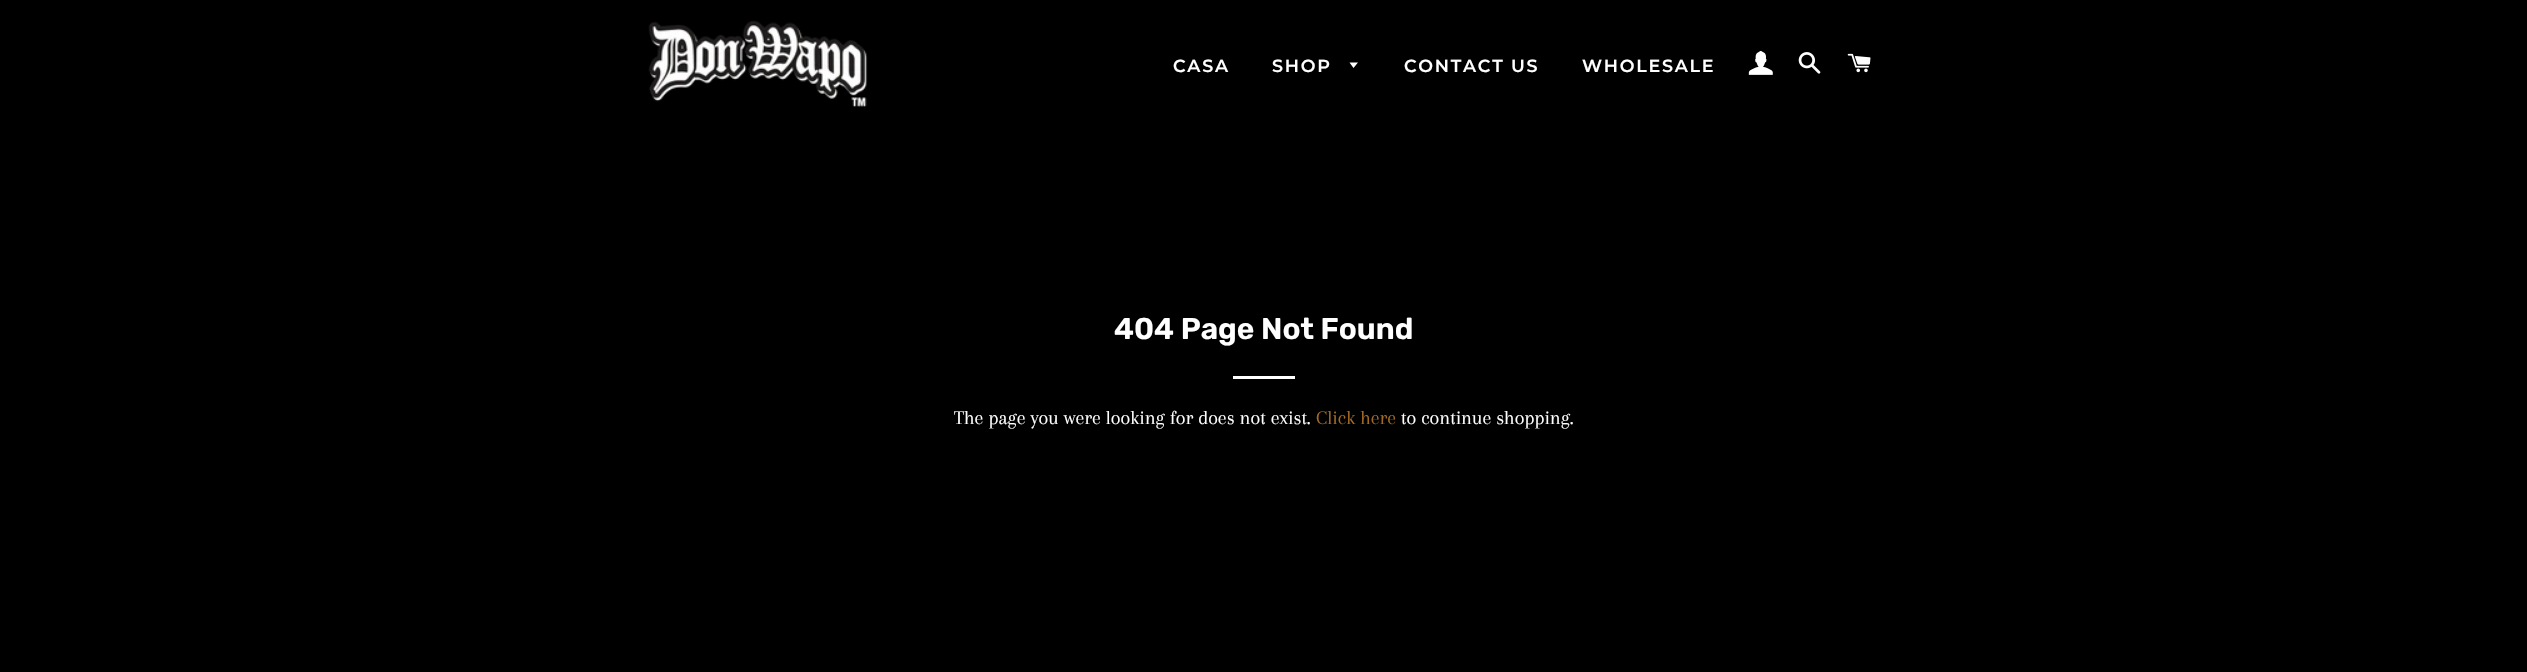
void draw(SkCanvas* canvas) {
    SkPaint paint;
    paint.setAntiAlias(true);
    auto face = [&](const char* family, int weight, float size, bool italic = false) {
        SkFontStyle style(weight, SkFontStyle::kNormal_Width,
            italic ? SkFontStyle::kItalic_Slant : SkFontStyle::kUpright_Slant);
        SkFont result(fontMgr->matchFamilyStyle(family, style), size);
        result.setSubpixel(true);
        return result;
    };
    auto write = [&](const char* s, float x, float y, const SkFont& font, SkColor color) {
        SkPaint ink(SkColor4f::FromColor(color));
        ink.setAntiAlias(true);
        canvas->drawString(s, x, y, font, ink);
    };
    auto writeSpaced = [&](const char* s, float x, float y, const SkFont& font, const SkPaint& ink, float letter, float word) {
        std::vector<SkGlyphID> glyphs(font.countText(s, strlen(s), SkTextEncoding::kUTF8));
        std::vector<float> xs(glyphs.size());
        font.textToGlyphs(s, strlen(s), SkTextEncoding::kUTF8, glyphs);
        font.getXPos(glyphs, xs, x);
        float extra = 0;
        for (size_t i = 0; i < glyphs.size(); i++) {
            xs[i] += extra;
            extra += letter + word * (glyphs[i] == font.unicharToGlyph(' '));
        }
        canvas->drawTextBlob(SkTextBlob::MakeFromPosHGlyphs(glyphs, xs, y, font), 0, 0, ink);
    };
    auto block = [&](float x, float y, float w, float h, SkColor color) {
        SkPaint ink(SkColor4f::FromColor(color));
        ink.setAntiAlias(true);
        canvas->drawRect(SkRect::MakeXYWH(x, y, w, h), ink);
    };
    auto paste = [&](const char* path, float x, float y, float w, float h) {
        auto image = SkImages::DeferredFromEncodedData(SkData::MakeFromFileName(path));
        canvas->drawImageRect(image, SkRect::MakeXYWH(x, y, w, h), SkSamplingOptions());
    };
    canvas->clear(SK_ColorBLACK);
    paste("pic1.png", 648, 20, 220, 87);
    auto kFont1 = face("Montserrat", 600, 17.5f);
    paint.setColor(SK_ColorWHITE);
    writeSpaced("CASA", 1173, 72, kFont1, paint, 1.75f, 0);
    writeSpaced("SHOP", 1272, 72, kFont1, paint, 1.75f, 0);
    canvas->drawPath(SkPathBuilder().moveTo(1349.5f, 62.5f).lineTo(1353.5f, 68).lineTo(1358, 62.5f).close().detach(), paint);
    writeSpaced("CONTACT US", 1404, 72, kFont1, paint, 1.75f, 0);
    writeSpaced("WHOLESALE", 1582, 72, kFont1, paint, 1.75f, 0);
    paste("pic2.png", 1748, 50, 25, 25);
    paste("pic3.png", 1798, 52, 23, 22);
    paste("pic4.png", 1847, 53, 24, 20);
    auto kFont2 = face("Rubik", 600, 30);
    write("404 Page Not Found", 1114, 339, kFont2, SK_ColorWHITE);
    block(1233, 376, 62, 3, SK_ColorWHITE);
    auto kFont3 = face("Arapey", 400, 20);
    write("The page you were looking for does not exist.", 954, 424, kFont3, SK_ColorWHITE);
    write("Click here", 1316, 424, kFont3, SkColorSetRGB(162, 107, 37));
    write("to continue shopping.", 1401, 424, kFont3, SK_ColorWHITE);
}
